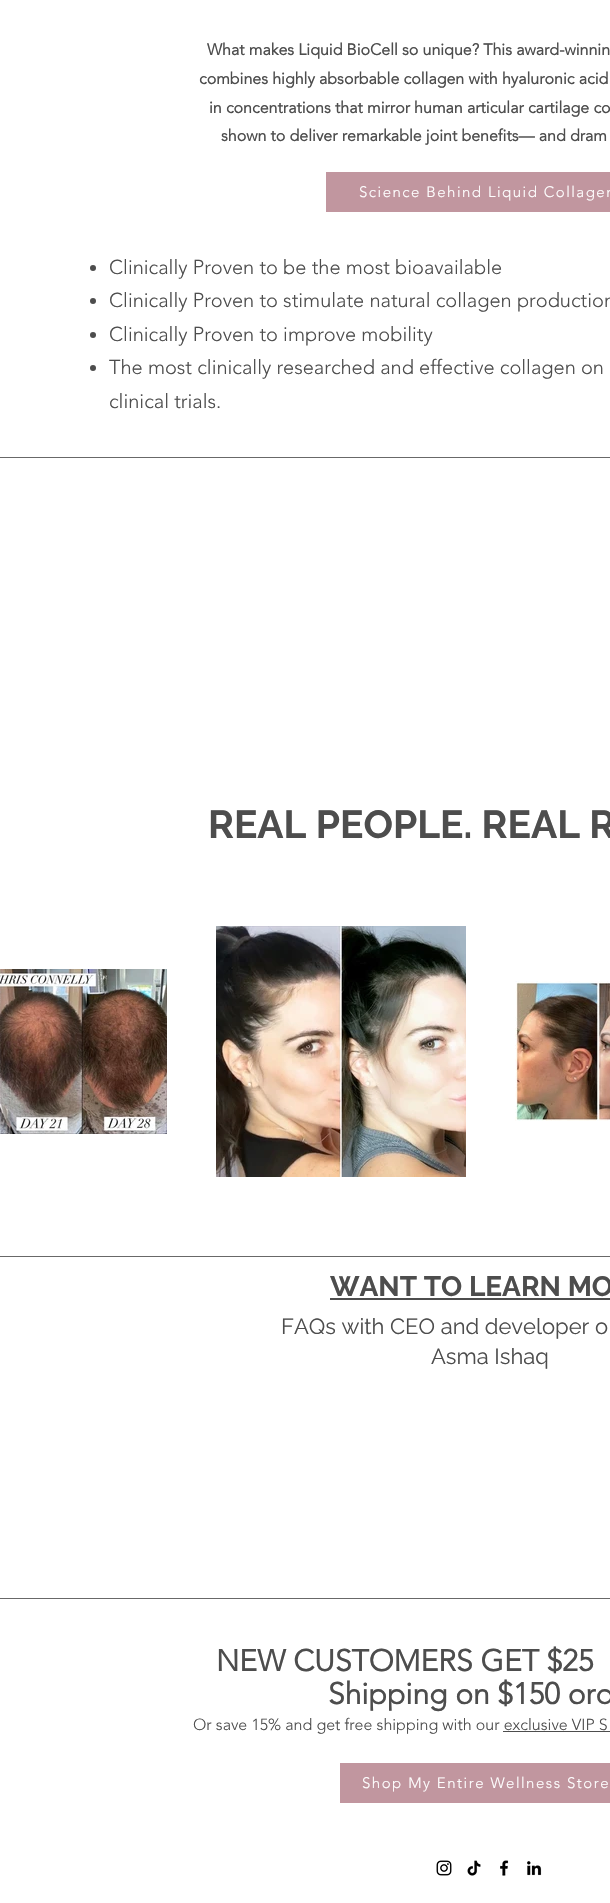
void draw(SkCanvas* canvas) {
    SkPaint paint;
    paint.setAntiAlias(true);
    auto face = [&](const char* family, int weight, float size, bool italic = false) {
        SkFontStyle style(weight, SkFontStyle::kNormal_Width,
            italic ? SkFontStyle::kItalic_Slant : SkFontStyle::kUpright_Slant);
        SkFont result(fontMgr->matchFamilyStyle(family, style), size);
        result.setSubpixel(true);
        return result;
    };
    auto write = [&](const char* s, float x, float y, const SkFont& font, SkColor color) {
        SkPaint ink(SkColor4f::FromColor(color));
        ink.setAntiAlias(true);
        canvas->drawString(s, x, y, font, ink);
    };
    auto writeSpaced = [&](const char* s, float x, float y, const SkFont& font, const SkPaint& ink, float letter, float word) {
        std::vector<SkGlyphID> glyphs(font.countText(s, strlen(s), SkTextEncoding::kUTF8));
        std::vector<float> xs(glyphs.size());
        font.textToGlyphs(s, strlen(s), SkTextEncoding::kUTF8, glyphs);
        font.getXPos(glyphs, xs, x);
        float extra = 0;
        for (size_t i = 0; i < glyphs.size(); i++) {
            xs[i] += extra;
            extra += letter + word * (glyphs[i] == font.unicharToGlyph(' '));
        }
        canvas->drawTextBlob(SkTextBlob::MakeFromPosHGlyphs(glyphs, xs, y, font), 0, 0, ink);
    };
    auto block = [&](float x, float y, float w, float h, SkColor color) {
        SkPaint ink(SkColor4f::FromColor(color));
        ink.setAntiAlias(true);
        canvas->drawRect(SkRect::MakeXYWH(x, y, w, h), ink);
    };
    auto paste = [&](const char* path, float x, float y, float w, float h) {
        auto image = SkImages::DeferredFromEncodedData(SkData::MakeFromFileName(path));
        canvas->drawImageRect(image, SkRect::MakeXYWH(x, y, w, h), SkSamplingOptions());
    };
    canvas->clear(SK_ColorWHITE);
    auto kFont1 = face("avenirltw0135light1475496", 700, 16);
    write("What makes Liquid BioCell so unique? This award-winnin", 207, 55, kFont1, SkColorSetRGB(77, 77, 77));
    write("combines highly absorbable collagen with hyaluronic acid", 199, 84, kFont1, SkColorSetRGB(77, 77, 77));
    write("in concentrations that mirror human articular cartilage co", 209, 113, kFont1, SkColorSetRGB(77, 77, 77));
    write("shown to deliver remarkable joint benefits— and dram", 221, 141, kFont1, SkColorSetRGB(77, 77, 77));
    block(326, 172, 284, 40, SkColorSetRGB(193, 150, 159));
    auto kFont2 = face("avenirltw0135light1475496", 300, 15);
    paint.setColor(SK_ColorWHITE);
    writeSpaced("Science Behind Liquid Collagen", 359, 197, kFont2, paint, 1.5f, 0);
    auto kFont3 = face("Raleway", 700, 39);
    write("REAL PEOPLE. REAL R", 208, 838, kFont3, SkColorSetRGB(77, 77, 77));
    paste("pic1.png", 0, 969, 167, 165);
    paste("pic2.png", 216, 926, 250, 251);
    paste("pic3.png", 515, 981, 95, 140);
    auto kFont4 = face("Raleway", 700, 28);
    write("WANT TO LEARN MO", 330, 1296, kFont4, SkColorSetRGB(77, 77, 77));
    block(330, 1298, 280, 2, SkColorSetRGB(77, 77, 77));
    auto kFont5 = face("Raleway", 400, 22);
    write("FAQs with CEO and developer o", 281, 1334, kFont5, SkColorSetRGB(77, 77, 77));
    write("Asma Ishaq", 431, 1364, kFont5, SkColorSetRGB(77, 77, 77));
    auto kFont6 = face("avenirltw0135light1475496", 700, 30);
    write("NEW CUSTOMERS GET $25", 216, 1671, kFont6, SkColorSetRGB(77, 77, 77));
    write("Shipping on $150 ord", 328, 1704, kFont6, SkColorSetRGB(77, 77, 77));
    auto kFont7 = face("avenirltw0135light1475496", 300, 16);
    write("Or save 15% and get free shipping with our exclusive VIP S", 193, 1730, kFont7, SkColorSetRGB(77, 77, 77));
    block(503, 1731, 107, 1, SkColorSetRGB(77, 77, 77));
    block(340, 1763, 270, 40, SkColorSetRGB(193, 150, 159));
    writeSpaced("Shop My Entire Wellness Store", 362, 1788, kFont2, paint, 1.5f, 0);
    paint.setColor(SkColorSetRGB(77, 77, 77));
    canvas->drawCircle(93, 268, 3, paint);
    auto kFont8 = face("avenirltw0135light1475496", 300, 20);
    write("Clinically Proven to be the most bioavailable", 109, 274, kFont8, SkColorSetRGB(77, 77, 77));
    canvas->drawCircle(93, 301, 3, paint);
    write("Clinically Proven to stimulate natural collagen production", 109, 307, kFont8, SkColorSetRGB(77, 77, 77));
    canvas->drawCircle(93, 335, 3, paint);
    write("Clinically Proven to improve mobility", 109, 341, kFont8, SkColorSetRGB(77, 77, 77));
    canvas->drawCircle(93, 368, 3, paint);
    write("The most clinically researched and effective collagen on", 109, 374, kFont8, SkColorSetRGB(77, 77, 77));
    write("clinical trials.", 109, 408, kFont8, SkColorSetRGB(77, 77, 77));
    block(0, 457, 610, 1, SkColorSetRGB(104, 104, 104));
    block(0, 1256, 610, 1, SkColorSetRGB(104, 104, 104));
    block(0, 1598, 610, 1, SkColorSetRGB(104, 104, 104));
    paste("pic4.png", 436, 1860, 16, 16);
    paste("pic5.png", 467, 1860, 14, 16);
    paste("pic6.png", 500, 1860, 9, 16);
    paste("pic7.png", 527, 1861, 15, 15);
}
